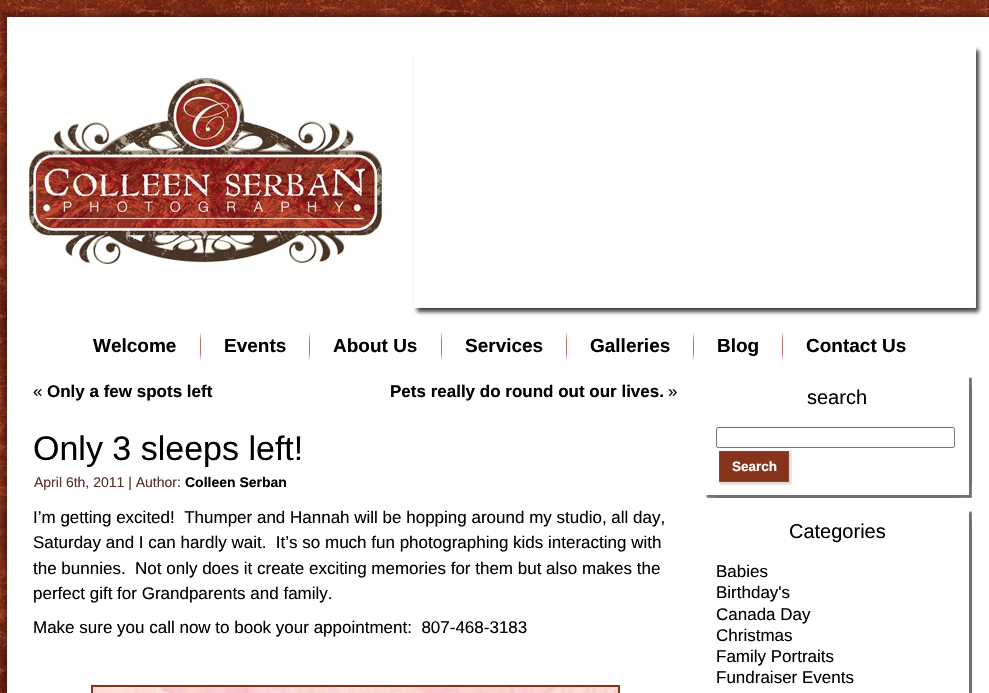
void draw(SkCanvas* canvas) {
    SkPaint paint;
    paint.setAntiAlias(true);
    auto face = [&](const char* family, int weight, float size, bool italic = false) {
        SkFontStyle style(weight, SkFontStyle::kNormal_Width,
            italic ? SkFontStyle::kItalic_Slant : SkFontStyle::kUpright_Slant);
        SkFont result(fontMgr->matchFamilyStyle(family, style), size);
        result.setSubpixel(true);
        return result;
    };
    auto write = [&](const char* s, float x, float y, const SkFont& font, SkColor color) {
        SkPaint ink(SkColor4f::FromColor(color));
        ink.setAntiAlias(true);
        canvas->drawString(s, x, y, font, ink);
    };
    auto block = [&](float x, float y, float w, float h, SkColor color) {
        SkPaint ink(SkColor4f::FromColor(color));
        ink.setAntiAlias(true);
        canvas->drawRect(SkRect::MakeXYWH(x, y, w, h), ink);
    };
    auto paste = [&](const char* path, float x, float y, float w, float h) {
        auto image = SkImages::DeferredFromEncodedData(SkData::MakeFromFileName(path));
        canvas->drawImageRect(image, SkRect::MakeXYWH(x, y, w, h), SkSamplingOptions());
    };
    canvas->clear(SK_ColorWHITE);
    paste("pic1.png", 0, 0, 989, 693);
    paste("pic2.png", 0, 10, 29, 29);
    paste("pic3.png", 29, 10, 942, 29);
    paste("pic4.png", 971, 10, 18, 29);
    paste("pic5.png", 0, 39, 29, 654);
    block(29, 39, 960, 654, SK_ColorWHITE);
    paste("pic6.png", 23, 46, 959, 270);
    auto kFont1 = face("Liberation Sans", 700, 19);
    write("Welcome", 93, 352, kFont1, SK_ColorBLACK);
    paste("pic7.png", 200, 332, 1, 29);
    write("Events", 224, 352, kFont1, SK_ColorBLACK);
    paste("pic7.png", 309, 332, 1, 29);
    write("About Us", 333, 352, kFont1, SK_ColorBLACK);
    paste("pic7.png", 441, 332, 1, 29);
    write("Services", 465, 352, kFont1, SK_ColorBLACK);
    paste("pic7.png", 566, 332, 1, 29);
    write("Galleries", 590, 352, kFont1, SK_ColorBLACK);
    paste("pic7.png", 693, 332, 1, 29);
    write("Blog", 717, 352, kFont1, SK_ColorBLACK);
    paste("pic7.png", 782, 332, 1, 29);
    write("Contact Us", 806, 352, kFont1, SK_ColorBLACK);
    auto kFont2 = face("Liberation Sans", 400, 17);
    write("«", 33, 397, kFont2, SK_ColorBLACK);
    auto kFont3 = face("Liberation Sans", 700, 17);
    write("Only a few spots left", 47, 397, kFont3, SK_ColorBLACK);
    write("Pets really do round out our lives.", 390, 397, kFont3, SK_ColorBLACK);
    write("»", 668, 397, kFont2, SK_ColorBLACK);
    auto kFont4 = face("Liberation Sans", 400, 34);
    write("Only 3 sleeps left!", 33, 460, kFont4, SK_ColorBLACK);
    auto kFont5 = face("Liberation Sans", 400, 14);
    write("April 6th, 2011 | Author:", 34, 487, kFont5, SkColorSetRGB(91, 47, 37));
    auto kFont6 = face("Liberation Sans", 700, 14);
    write("Colleen Serban", 185, 487, kFont6, SK_ColorBLACK);
    write("I’m getting excited!  Thumper and Hannah will be hopping around my studio, all day,", 33, 523, kFont2, SK_ColorBLACK);
    write("Saturday and I can hardly wait.  It’s so much fun photographing kids interacting with", 33, 548, kFont2, SK_ColorBLACK);
    write("the bunnies.  Not only does it create exciting memories for them but also makes the", 33, 574, kFont2, SK_ColorBLACK);
    write("perfect gift for Grandparents and family.", 33, 599, kFont2, SK_ColorBLACK);
    write("Make sure you call now to book your appointment:  807-468-3183", 33, 633, kFont2, SK_ColorBLACK);
    paint.setStyle(SkPaint::kStroke_Style);
    paint.setStrokeWidth(2);
    paint.setColor(SkColorSetRGB(135, 52, 29));
    canvas->drawRect(SkRect::MakeXYWH(92, 686, 527, 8), paint);
    paste("pic8.png", 93, 687, 525, 6);
    paste("pic9.png", 969, 377, 3, 10);
    auto kFont7 = face("Liberation Sans", 400, 20);
    write("search", 807, 404, kFont7, SK_ColorBLACK);
    paint.setStrokeWidth(1);
    paint.setColor(SkColorSetRGB(118, 118, 118));
    canvas->drawRoundRect(SkRect::MakeXYWH(716.5f, 427.5f, 238, 20), 1.5f, 1.5f, paint);
    paste("pic10.png", 718, 450, 67, 35);
    paste("pic11.png", 785, 450, 7, 35);
    auto kFont8 = face("Liberation Sans", 700, 13.5f);
    write("Search", 732, 471, kFont8, SK_ColorWHITE);
    block(969, 387, 3, 98, SkColorSetRGB(112, 112, 112));
    paste("pic12.png", 706, 495, 10, 3);
    block(716, 495, 243, 3, SkColorSetRGB(112, 112, 112));
    paste("pic13.png", 959, 485, 13, 13);
    paste("pic9.png", 969, 511, 3, 10);
    write("Categories", 789, 538, kFont7, SK_ColorBLACK);
    write("Babies", 716, 577, kFont2, SK_ColorBLACK);
    write("Birthday's", 716, 598, kFont2, SK_ColorBLACK);
    write("Canada Day", 716, 620, kFont2, SK_ColorBLACK);
    write("Christmas", 716, 641, kFont2, SK_ColorBLACK);
    write("Family Portraits", 716, 662, kFont2, SK_ColorBLACK);
    write("Fundraiser Events", 716, 683, kFont2, SK_ColorBLACK);
    block(969, 521, 3, 172, SkColorSetRGB(112, 112, 112));
}
